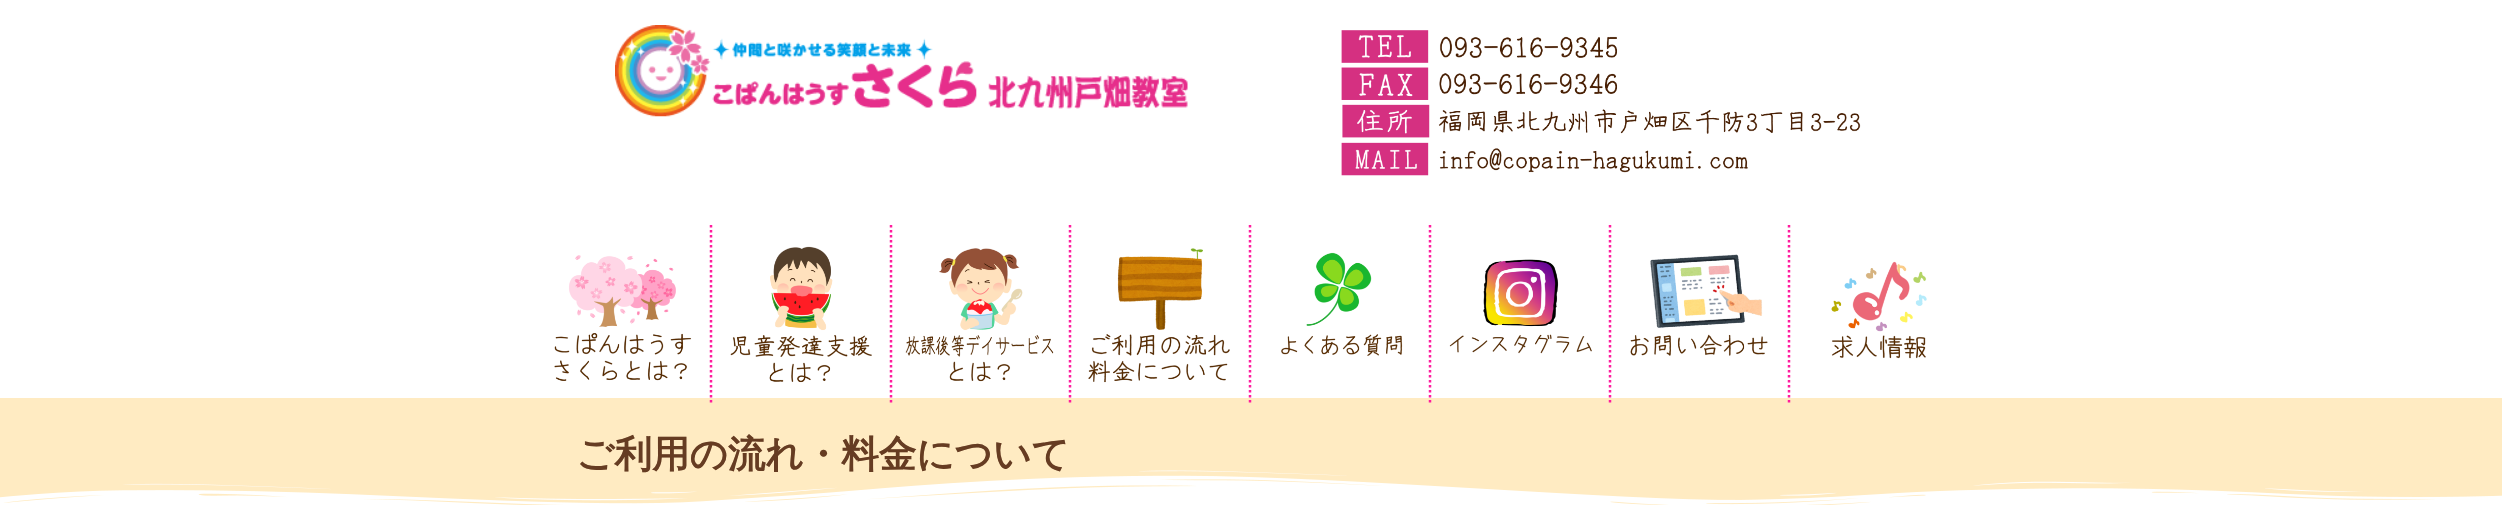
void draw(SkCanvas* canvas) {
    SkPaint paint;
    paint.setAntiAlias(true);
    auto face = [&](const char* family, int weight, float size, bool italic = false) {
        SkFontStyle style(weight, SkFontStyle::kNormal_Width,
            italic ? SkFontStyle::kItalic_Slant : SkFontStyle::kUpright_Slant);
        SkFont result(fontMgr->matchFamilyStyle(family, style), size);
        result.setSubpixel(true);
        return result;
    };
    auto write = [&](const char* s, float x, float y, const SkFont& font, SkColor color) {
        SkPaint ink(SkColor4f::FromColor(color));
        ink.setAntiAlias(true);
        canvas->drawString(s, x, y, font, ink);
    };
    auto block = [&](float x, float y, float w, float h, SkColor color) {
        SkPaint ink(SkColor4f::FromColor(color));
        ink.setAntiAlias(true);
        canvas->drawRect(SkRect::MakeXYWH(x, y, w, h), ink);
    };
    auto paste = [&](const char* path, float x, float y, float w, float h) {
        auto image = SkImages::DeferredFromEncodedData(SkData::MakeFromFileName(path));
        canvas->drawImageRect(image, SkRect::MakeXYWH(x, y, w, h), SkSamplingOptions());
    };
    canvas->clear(SK_ColorWHITE);
    paste("pic1.png", 615, 25, 573, 92);
    paste("pic2.png", 1341, 30, 520, 146);
    block(0, 398, 2502, 107, SkColorSetRGB(255, 235, 194));
    paint.setStyle(SkPaint::kStroke_Style);
    paint.setStrokeWidth(2.5f);
    paint.setColor(SkColorSetRGB(255, 28, 158));
    paint.setPathEffect(SkDashPathEffect::Make({{2.5f, 2.5f}}, 0));
    canvas->drawPath(SkPathBuilder().moveTo(711, 225).lineTo(711, 404).detach(), paint);
    paint.setPathEffect(nullptr);
    paste("pic3.png", 554, 255, 138, 126);
    paint.setPathEffect(SkDashPathEffect::Make({{2.5f, 2.5f}}, 0));
    canvas->drawPath(SkPathBuilder().moveTo(891, 225).lineTo(891, 404).detach(), paint);
    paint.setPathEffect(nullptr);
    paste("pic4.png", 730, 246, 142, 137);
    paint.setPathEffect(SkDashPathEffect::Make({{2.5f, 2.5f}}, 0));
    canvas->drawPath(SkPathBuilder().moveTo(1070, 225).lineTo(1070, 404).detach(), paint);
    paint.setPathEffect(nullptr);
    paste("pic5.png", 905, 248, 149, 134);
    paint.setPathEffect(SkDashPathEffect::Make({{2.5f, 2.5f}}, 0));
    canvas->drawPath(SkPathBuilder().moveTo(1250, 225).lineTo(1250, 404).detach(), paint);
    paint.setPathEffect(nullptr);
    paste("pic6.png", 1088, 248, 142, 135);
    paint.setPathEffect(SkDashPathEffect::Make({{2.5f, 2.5f}}, 0));
    canvas->drawPath(SkPathBuilder().moveTo(1430, 225).lineTo(1430, 404).detach(), paint);
    paint.setPathEffect(nullptr);
    paste("pic7.png", 1281, 252, 122, 104);
    paint.setPathEffect(SkDashPathEffect::Make({{2.5f, 2.5f}}, 0));
    canvas->drawPath(SkPathBuilder().moveTo(1610, 225).lineTo(1610, 404).detach(), paint);
    paint.setPathEffect(nullptr);
    paste("pic8.png", 1449, 259, 143, 95);
    paint.setPathEffect(SkDashPathEffect::Make({{2.5f, 2.5f}}, 0));
    canvas->drawPath(SkPathBuilder().moveTo(1789, 225).lineTo(1789, 404).detach(), paint);
    paint.setPathEffect(nullptr);
    paste("pic9.png", 1630, 254, 138, 102);
    paste("pic10.png", 1831, 261, 96, 98);
    paste("pic11.png", 0, 470, 2502, 35);
    auto kFont1 = face("WenQuanYi Zen Hei", 700, 37.5f);
    write("ご利用の流れ・料金について", 576, 467, kFont1, SkColorSetRGB(102, 60, 34));
}
